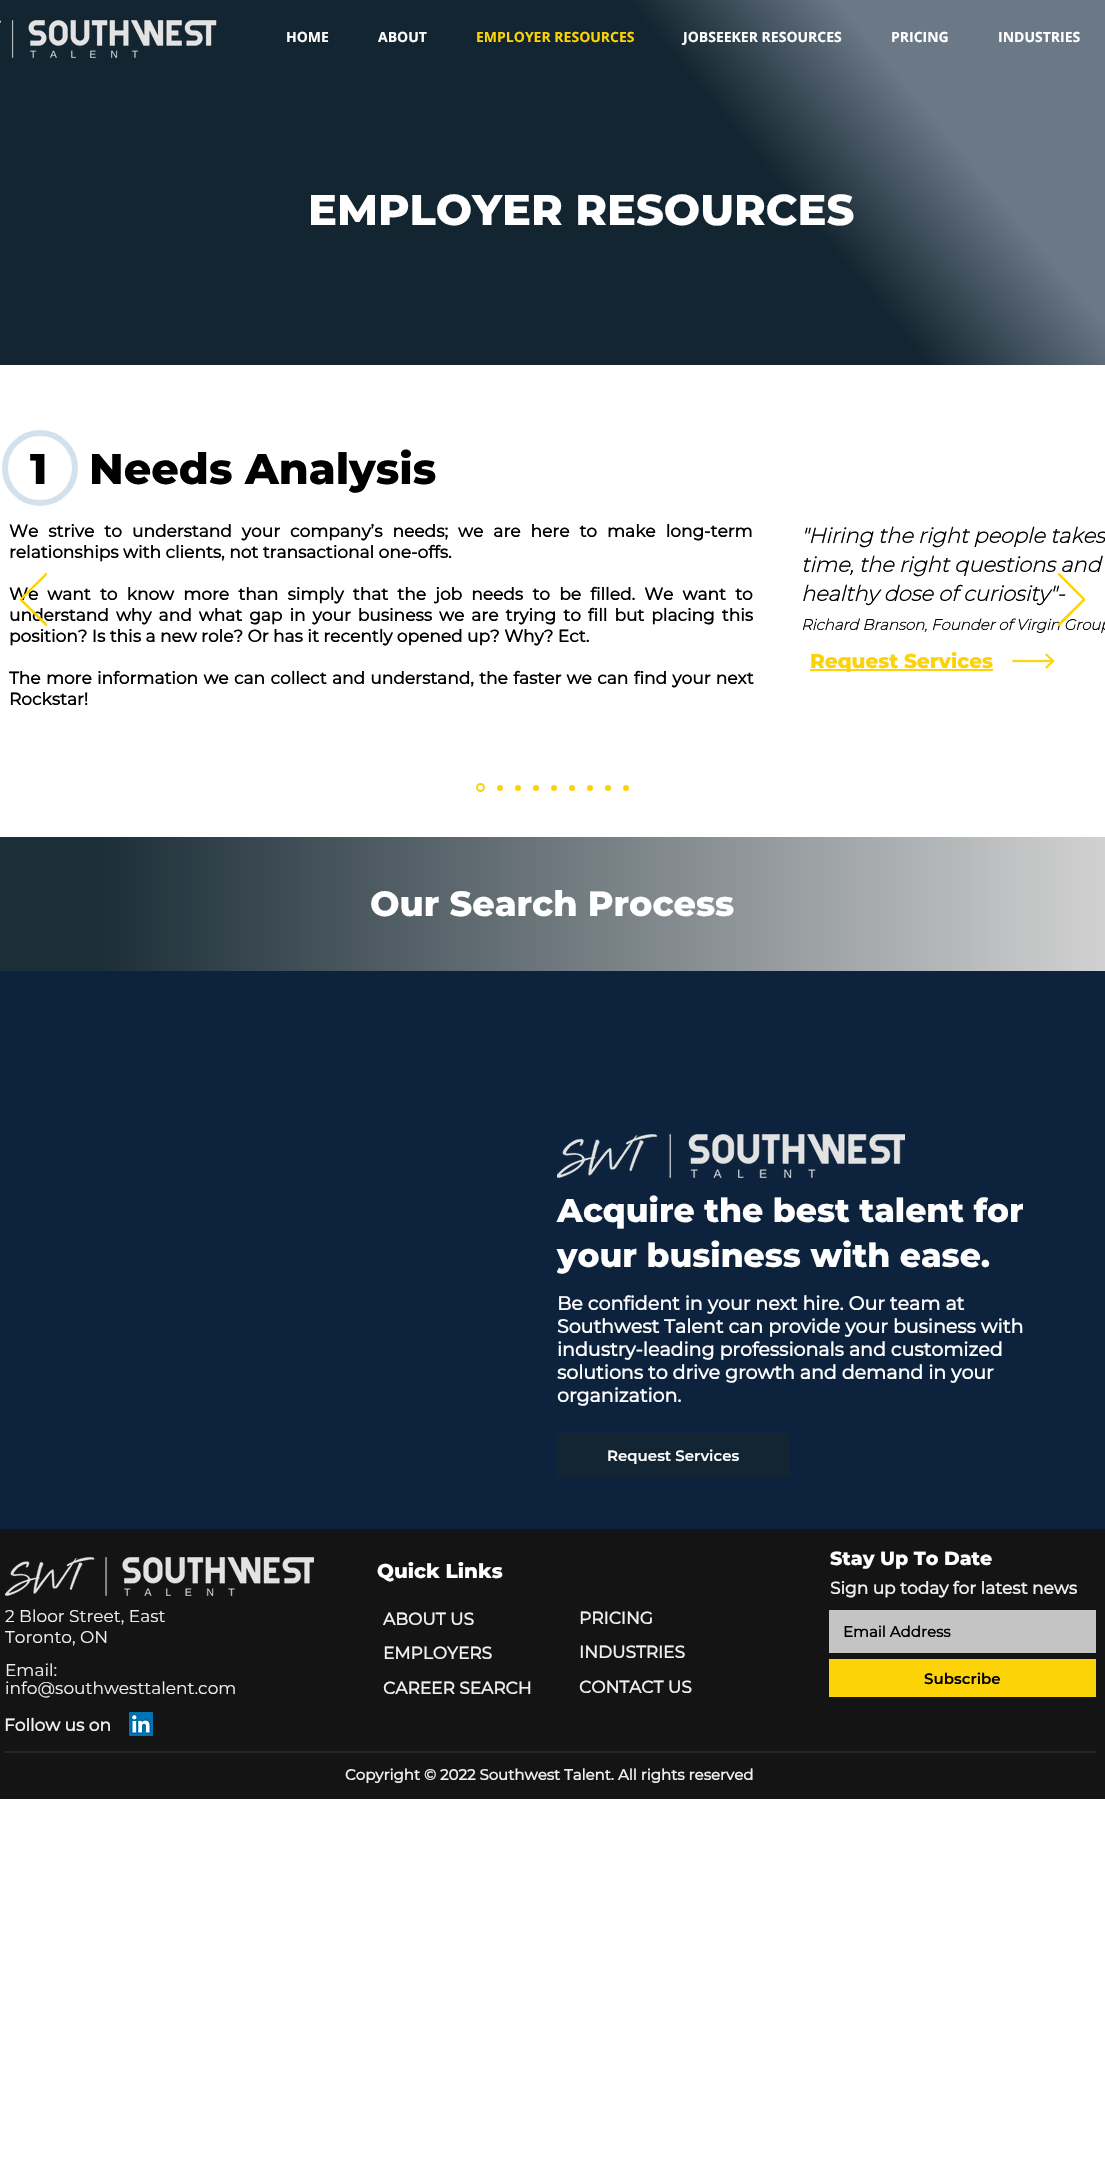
void draw(SkCanvas* canvas) {
    SkPaint paint;
    paint.setAntiAlias(true);
    auto face = [&](const char* family, int weight, float size, bool italic = false) {
        SkFontStyle style(weight, SkFontStyle::kNormal_Width,
            italic ? SkFontStyle::kItalic_Slant : SkFontStyle::kUpright_Slant);
        SkFont result(fontMgr->matchFamilyStyle(family, style), size);
        result.setSubpixel(true);
        return result;
    };
    auto write = [&](const char* s, float x, float y, const SkFont& font, SkColor color) {
        SkPaint ink(SkColor4f::FromColor(color));
        ink.setAntiAlias(true);
        canvas->drawString(s, x, y, font, ink);
    };
    auto writeSpaced = [&](const char* s, float x, float y, const SkFont& font, const SkPaint& ink, float letter, float word) {
        std::vector<SkGlyphID> glyphs(font.countText(s, strlen(s), SkTextEncoding::kUTF8));
        std::vector<float> xs(glyphs.size());
        font.textToGlyphs(s, strlen(s), SkTextEncoding::kUTF8, glyphs);
        font.getXPos(glyphs, xs, x);
        float extra = 0;
        for (size_t i = 0; i < glyphs.size(); i++) {
            xs[i] += extra;
            extra += letter + word * (glyphs[i] == font.unicharToGlyph(' '));
        }
        canvas->drawTextBlob(SkTextBlob::MakeFromPosHGlyphs(glyphs, xs, y, font), 0, 0, ink);
    };
    auto block = [&](float x, float y, float w, float h, SkColor color) {
        SkPaint ink(SkColor4f::FromColor(color));
        ink.setAntiAlias(true);
        canvas->drawRect(SkRect::MakeXYWH(x, y, w, h), ink);
    };
    auto paste = [&](const char* path, float x, float y, float w, float h) {
        auto image = SkImages::DeferredFromEncodedData(SkData::MakeFromFileName(path));
        canvas->drawImageRect(image, SkRect::MakeXYWH(x, y, w, h), SkSamplingOptions());
    };
    canvas->clear(SK_ColorWHITE);
    {
        const SkColor colors[] = {SkColorSetRGB(19, 37, 48), SkColorSetRGB(19, 37, 48), SkColorSetRGB(107, 121, 134)};
        const float stops[] = {0.48f, 0.66f, 0.81f};
        const SkPoint ends[] = {{134, 528}, {971, -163}};
        paint.setShader(SkGradientShader::MakeLinear(ends, colors, stops, 3, SkTileMode::kClamp));
        paint.setAlpha(255);
    }
    canvas->drawRect(SkRect::MakeXYWH(0, 0, 1105, 365), paint);
    paste("pic1.png", 0, 20, 217, 38);
    auto kFont1 = face("Open Sans", 700, 14);
    write("HOME", 286, 42, kFont1, SK_ColorWHITE);
    write("ABOUT", 378, 42, kFont1, SK_ColorWHITE);
    write("EMPLOYER RESOURCES", 476, 42, kFont1, SkColorSetRGB(252, 211, 7));
    write("JOBSEEKER RESOURCES", 683, 42, kFont1, SK_ColorWHITE);
    write("PRICING", 891, 42, kFont1, SK_ColorWHITE);
    write("INDUSTRIES", 998, 42, kFont1, SK_ColorWHITE);
    auto kFont2 = face("Montserrat", 800, 43);
    write("EMPLOYER RESOURCES", 308, 225, kFont2, SK_ColorWHITE);
    paint.setStyle(SkPaint::kStroke_Style);
    paint.setStrokeWidth(6);
    paint.setShader(nullptr);
    paint.setColor(SkColorSetRGB(210, 225, 236));
    canvas->drawCircle(40, 468, 35, paint);
    write("1", 30, 484, kFont2, SK_ColorBLACK);
    write("Needs Analysis", 89, 484, kFont2, SK_ColorBLACK);
    auto kFont3 = face("Montserrat", 700, 17);
    paint.setStyle(SkPaint::kFill_Style);
    paint.setColor(SK_ColorBLACK);
    writeSpaced("We strive to understand your company’s needs; we are here to make long-term", 9, 537, kFont3, paint, 0, 5.6f);
    write("relationships with clients, not transactional one-offs.", 9, 558, kFont3, SK_ColorBLACK);
    writeSpaced("We want to know more than simply that the job needs to be filled. We want to", 9, 600, kFont3, paint, 0, 4.75f);
    writeSpaced("understand why and what gap in your business we are trying to fill but placing this", 9, 621, kFont3, paint, 0, 2.6f);
    write("position? Is this a new role? Or has it recently opened up? Why? Ect.", 9, 642, kFont3, SK_ColorBLACK);
    writeSpaced("The more information we can collect and understand, the faster we can find your next", 9, 684, kFont3, paint, 0, 0.9f);
    write("Rockstar!", 9, 705, kFont3, SK_ColorBLACK);
    auto kFont4 = face("Montserrat", 700, 21, true);
    write("\"Hiring the right people takes", 801, 543, kFont4, SK_ColorBLACK);
    write("time, the right questions and", 801, 572, kFont4, SK_ColorBLACK);
    write("healthy dose of curiosity\"-", 801, 601, kFont4, SK_ColorBLACK);
    auto kFont5 = face("Montserrat", 700, 15, true);
    write("Richard Branson, Founder of Virgin Group", 801, 630, kFont5, SK_ColorBLACK);
    block(810, 669, 183, 2, SkColorSetRGB(252, 211, 7));
    auto kFont6 = face("Montserrat", 800, 20);
    write("Request Services", 810, 668, kFont6, SkColorSetRGB(252, 211, 7));
    paste("pic2.png", 1012, 653, 43, 16);
    canvas->save();
    canvas->clipRect(SkRect::MakeXYWH(20, 573, 27, 53));
    paint.setStyle(SkPaint::kStroke_Style);
    paint.setStrokeWidth(1.3f);
    paint.setColor(SkColorSetRGB(252, 211, 7));
    canvas->drawPath(SkPathBuilder().moveTo(46, 625.5f).lineTo(20, 599.5f).lineTo(46, 573.5f).lineTo(47, 574).lineTo(21.5f, 599.5f).lineTo(47, 624.5f).close().detach(), paint);
    canvas->restore();
    canvas->save();
    canvas->clipRect(SkRect::MakeXYWH(1058, 573, 27, 53));
    canvas->drawPath(SkPathBuilder().moveTo(1059, 625.5f).lineTo(1085, 599.5f).lineTo(1059, 573.5f).lineTo(1058, 574).lineTo(1083.5f, 599.5f).lineTo(1058, 624.5f).close().detach(), paint);
    canvas->restore();
    paint.setStrokeWidth(2);
    canvas->drawCircle(480.5f, 787.5f, 3.5f, paint);
    paint.setStyle(SkPaint::kFill_Style);
    canvas->drawCircle(500, 788, 3, paint);
    canvas->drawCircle(518, 788, 3, paint);
    canvas->drawCircle(536, 788, 3, paint);
    canvas->drawCircle(554, 788, 3, paint);
    canvas->drawCircle(572, 788, 3, paint);
    canvas->drawCircle(590, 788, 3, paint);
    canvas->drawCircle(608, 788, 3, paint);
    canvas->drawCircle(626, 788, 3, paint);
    {
        const SkColor colors[] = {SkColorSetRGB(28, 46, 56), SkColorSetRGB(209, 209, 209)};
        const float stops[] = {0.09f, 1};
        const SkPoint ends[] = {{0, 947}, {1105, 947}};
        paint.setShader(SkGradientShader::MakeLinear(ends, colors, stops, 2, SkTileMode::kClamp));
        paint.setAlpha(255);
    }
    canvas->drawRect(SkRect::MakeXYWH(0, 837, 1105, 134), paint);
    auto kFont7 = face("Montserrat", 800, 35);
    write("Our Search Process", 370, 916, kFont7, SK_ColorWHITE);
    block(0, 971, 1105, 558, SkColorSetRGB(13, 35, 61));
    paste("pic3.png", 557, 1134, 348, 44);
    auto kFont8 = face("Montserrat", 800, 33);
    write("Acquire the best talent for", 557, 1222, kFont8, SK_ColorWHITE);
    write("your business with ease.", 557, 1267, kFont8, SK_ColorWHITE);
    auto kFont9 = face("Montserrat", 700, 19);
    write("Be confident in your next hire. Our team at", 557, 1310, kFont9, SK_ColorWHITE);
    write("Southwest Talent can provide your business with", 557, 1333, kFont9, SK_ColorWHITE);
    write("industry-leading professionals and customized", 557, 1356, kFont9, SK_ColorWHITE);
    write("solutions to drive growth and demand in your", 557, 1379, kFont9, SK_ColorWHITE);
    write("organization.", 557, 1402, kFont9, SK_ColorWHITE);
    paint.setShader(nullptr);
    paint.setColor(SkColorSetRGB(19, 37, 51));
    canvas->drawRect(SkRect::MakeXYWH(557.5f, 1433.5f, 232, 43), paint);
    paint.setStyle(SkPaint::kStroke_Style);
    paint.setStrokeWidth(1);
    paint.setColor(SkColorSetRGB(19, 37, 48));
    canvas->drawRect(SkRect::MakeXYWH(557.5f, 1433.5f, 232, 43), paint);
    auto kFont10 = face("Montserrat", 600, 15);
    write("Request Services", 607, 1461, kFont10, SK_ColorWHITE);
    block(0, 1529, 1105, 270, SkColorSetRGB(20, 20, 20));
    paste("pic4.png", 5, 1557, 309, 39);
    write("Quick Links", 377, 1578, kFont6, SK_ColorWHITE);
    auto kFont11 = face("Montserrat", 800, 19);
    write("Stay Up To Date", 830, 1565, kFont11, SK_ColorWHITE);
    write("Sign up today for latest news", 830, 1594, kFont3, SkColorSetRGB(241, 240, 237));
    auto kFont12 = face("Montserrat", 400, 17);
    write("2 Bloor Street, East", 5, 1622, kFont12, SkColorSetRGB(241, 240, 237));
    write("Toronto, ON", 5, 1643, kFont12, SkColorSetRGB(241, 240, 237));
    write("Email:", 5, 1676, kFont12, SkColorSetRGB(241, 240, 237));
    write("info@southwesttalent.com", 5, 1694, kFont12, SkColorSetRGB(241, 240, 237));
    write("ABOUT US", 383, 1625, kFont3, SkColorSetRGB(241, 240, 237));
    write("EMPLOYERS", 383, 1659, kFont3, SkColorSetRGB(241, 240, 237));
    write("CAREER SEARCH", 383, 1694, kFont3, SkColorSetRGB(241, 240, 237));
    write("PRICING", 579, 1624, kFont3, SkColorSetRGB(241, 240, 237));
    write("INDUSTRIES", 579, 1658, kFont3, SkColorSetRGB(241, 240, 237));
    write("CONTACT US", 579, 1693, kFont3, SkColorSetRGB(241, 240, 237));
    block(829, 1610, 267, 43, SkColorSetRGB(196, 196, 196));
    auto kFont13 = face("Montserrat", 700, 15);
    write("Email Address", 843, 1637, kFont13, SK_ColorBLACK);
    block(829, 1659, 267, 38, SkColorSetRGB(252, 211, 7));
    write("Subscribe", 924, 1684, kFont10, SK_ColorBLACK);
    write("Follow us on", 4, 1731, kFont3, SkColorSetRGB(241, 240, 237));
    paste("pic5.png", 129, 1712, 24, 24);
    block(4, 1751, 1092, 2, SkColorSetRGB(38, 38, 37));
    write("Copyright © 2022 Southwest Talent. All rights reserved", 345, 1780, kFont13, SkColorSetRGB(241, 240, 237));
}
